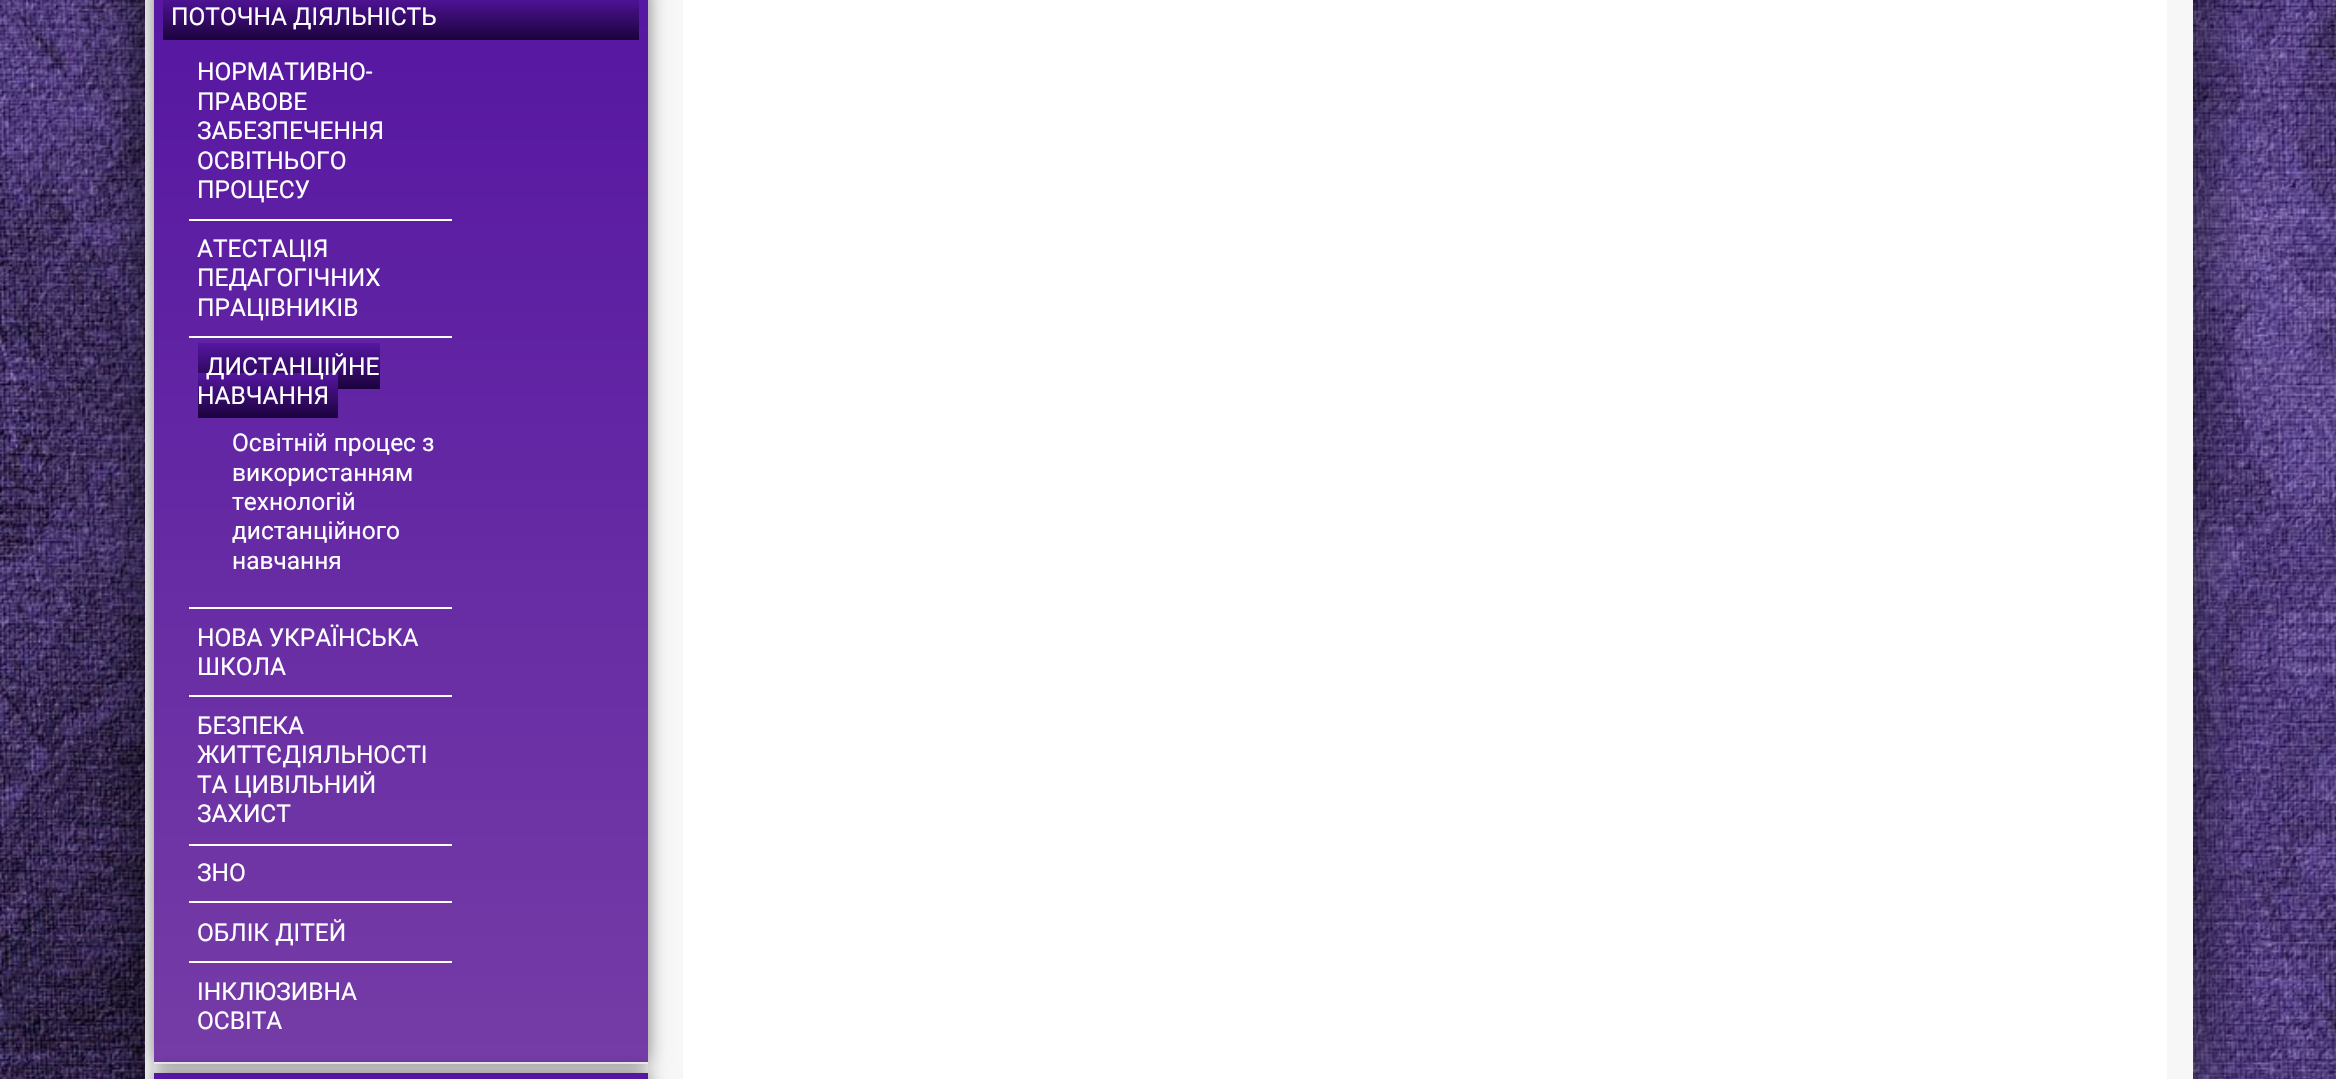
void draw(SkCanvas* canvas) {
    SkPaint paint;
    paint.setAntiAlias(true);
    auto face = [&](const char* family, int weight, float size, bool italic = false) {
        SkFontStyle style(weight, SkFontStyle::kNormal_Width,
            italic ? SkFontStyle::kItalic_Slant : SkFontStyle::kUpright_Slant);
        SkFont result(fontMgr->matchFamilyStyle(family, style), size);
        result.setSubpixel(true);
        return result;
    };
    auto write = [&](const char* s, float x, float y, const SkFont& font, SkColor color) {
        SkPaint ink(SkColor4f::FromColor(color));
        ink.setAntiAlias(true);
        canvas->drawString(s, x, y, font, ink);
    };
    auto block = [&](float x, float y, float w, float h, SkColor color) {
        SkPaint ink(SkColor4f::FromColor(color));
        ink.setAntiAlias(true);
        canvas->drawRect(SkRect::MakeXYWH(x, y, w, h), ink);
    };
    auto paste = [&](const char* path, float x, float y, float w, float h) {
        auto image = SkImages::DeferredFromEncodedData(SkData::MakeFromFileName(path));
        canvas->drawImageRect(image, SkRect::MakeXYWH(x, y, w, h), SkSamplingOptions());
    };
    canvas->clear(SK_ColorWHITE);
    paste("pic1.png", 0, 0, 2336, 1079);
    paint.setColor(SkColorSetARGB(77, 0, 0, 0));
    paint.setMaskFilter(SkMaskFilter::MakeBlur(kNormal_SkBlurStyle, 26));
    canvas->drawRect(SkRect::MakeXYWH(133, -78, 2065, 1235), paint);
    paint.setMaskFilter(nullptr);
    paint.setMaskFilter(SkMaskFilter::MakeBlur(kNormal_SkBlurStyle, 26));
    canvas->drawRect(SkRect::MakeXYWH(140, -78, 2065, 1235), paint);
    paint.setMaskFilter(nullptr);
    block(145, 0, 2048, 1079, SkColorSetRGB(247, 247, 247));
    block(154, 1064, 494, 9, SK_ColorWHITE);
    paint.setColor(SkColorSetARGB(128, 0, 0, 0));
    paint.setMaskFilter(SkMaskFilter::MakeBlur(kNormal_SkBlurStyle, 9));
    canvas->drawRect(SkRect::MakeXYWH(154, -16, 494, 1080), paint);
    paint.setMaskFilter(nullptr);
    {
        const SkColor colors[] = {SkColorSetRGB(117, 60, 166), SkColorSetRGB(86, 22, 162)};
        const float stops[] = {0, 1};
        const SkPoint ends[] = {{401, 1062}, {401, -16}};
        paint.setShader(SkGradientShader::MakeLinear(ends, colors, stops, 2, SkTileMode::kClamp));
        paint.setAlpha(255);
    }
    canvas->drawRect(SkRect::MakeXYWH(154, 0, 494, 1062), paint);
    block(154, 1062, 494, 2, SkColorSetRGB(241, 241, 241));
    {
        const SkColor colors[] = {SkColorSetRGB(27, 2, 60), SkColorSetRGB(86, 22, 162)};
        const float stops[] = {0, 1};
        const SkPoint ends[] = {{401, 40}, {401, -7}};
        paint.setShader(SkGradientShader::MakeLinear(ends, colors, stops, 2, SkTileMode::kClamp));
        paint.setAlpha(255);
    }
    canvas->drawRect(SkRect::MakeXYWH(163, 0, 476, 40), paint);
    auto kFont1 = face("Roboto", 400, 24.5f);
    write("ПОТОЧНА ДІЯЛЬНІСТЬ", 171, 25, kFont1, SK_ColorWHITE);
    write("НОРМАТИВНО-", 197, 80, kFont1, SK_ColorWHITE);
    write("ПРАВОВЕ", 197, 110, kFont1, SK_ColorWHITE);
    write("ЗАБЕЗПЕЧЕННЯ", 197, 139, kFont1, SK_ColorWHITE);
    write("ОСВІТНЬОГО", 197, 169, kFont1, SK_ColorWHITE);
    write("ПРОЦЕСУ", 197, 198, kFont1, SK_ColorWHITE);
    block(189, 219, 263, 2, SK_ColorWHITE);
    write("АТЕСТАЦІЯ", 197, 257, kFont1, SK_ColorWHITE);
    write("ПЕДАГОГІЧНИХ", 197, 286, kFont1, SK_ColorWHITE);
    write("ПРАЦІВНИКІВ", 197, 316, kFont1, SK_ColorWHITE);
    block(189, 336, 263, 2, SK_ColorWHITE);
    {
        const SkColor colors[] = {SkColorSetRGB(27, 2, 60), SkColorSetRGB(86, 22, 162)};
        const float stops[] = {0, 1};
        const SkPoint ends[] = {{289, 389}, {289, 343}};
        paint.setShader(SkGradientShader::MakeLinear(ends, colors, stops, 2, SkTileMode::kClamp));
        paint.setAlpha(255);
    }
    canvas->drawRect(SkRect::MakeXYWH(198, 343, 182, 46), paint);
    {
        const SkColor colors[] = {SkColorSetRGB(27, 2, 60), SkColorSetRGB(86, 22, 162)};
        const float stops[] = {0, 1};
        const SkPoint ends[] = {{268, 418}, {268, 373}};
        paint.setShader(SkGradientShader::MakeLinear(ends, colors, stops, 2, SkTileMode::kClamp));
        paint.setAlpha(255);
    }
    canvas->drawRect(SkRect::MakeXYWH(198, 373, 140, 45), paint);
    write("ДИСТАНЦІЙНЕ", 206, 375, kFont1, SK_ColorWHITE);
    write("НАВЧАННЯ", 197, 404, kFont1, SK_ColorWHITE);
    write("Освітній процес з", 232, 451, kFont1, SK_ColorWHITE);
    write("використанням", 232, 481, kFont1, SK_ColorWHITE);
    write("технологій", 232, 510, kFont1, SK_ColorWHITE);
    write("дистанційного", 232, 539, kFont1, SK_ColorWHITE);
    write("навчання", 232, 569, kFont1, SK_ColorWHITE);
    block(189, 607, 263, 2, SK_ColorWHITE);
    write("НОВА УКРАЇНСЬКА", 197, 646, kFont1, SK_ColorWHITE);
    write("ШКОЛА", 197, 675, kFont1, SK_ColorWHITE);
    block(189, 695, 263, 2, SK_ColorWHITE);
    write("БЕЗПЕКА", 197, 734, kFont1, SK_ColorWHITE);
    write("ЖИТТЄДІЯЛЬНОСТІ", 197, 763, kFont1, SK_ColorWHITE);
    write("ТА ЦИВІЛЬНИЙ", 197, 793, kFont1, SK_ColorWHITE);
    write("ЗАХИСТ", 197, 822, kFont1, SK_ColorWHITE);
    block(189, 844, 263, 2, SK_ColorWHITE);
    write("ЗНО", 197, 881, kFont1, SK_ColorWHITE);
    block(189, 901, 263, 2, SK_ColorWHITE);
    write("ОБЛІК ДІТЕЙ", 197, 941, kFont1, SK_ColorWHITE);
    block(189, 961, 263, 2, SK_ColorWHITE);
    write("ІНКЛЮЗИВНА", 197, 1000, kFont1, SK_ColorWHITE);
    write("ОСВІТА", 197, 1029, kFont1, SK_ColorWHITE);
    paint.setShader(nullptr);
    paint.setColor(SkColorSetARGB(128, 0, 0, 0));
    paint.setMaskFilter(SkMaskFilter::MakeBlur(kNormal_SkBlurStyle, 9));
    canvas->drawRect(SkRect::MakeXYWH(154, 1073, 494, 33), paint);
    paint.setMaskFilter(nullptr);
    {
        const SkColor colors[] = {SkColorSetRGB(117, 60, 166), SkColorSetRGB(86, 22, 162)};
        const float stops[] = {0, 1};
        const SkPoint ends[] = {{401, 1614}, {401, 1073}};
        paint.setShader(SkGradientShader::MakeLinear(ends, colors, stops, 2, SkTileMode::kClamp));
        paint.setAlpha(255);
    }
    canvas->drawRect(SkRect::MakeXYWH(154, 1073, 494, 6), paint);
    block(683, 0, 1484, 1079, SK_ColorWHITE);
}
